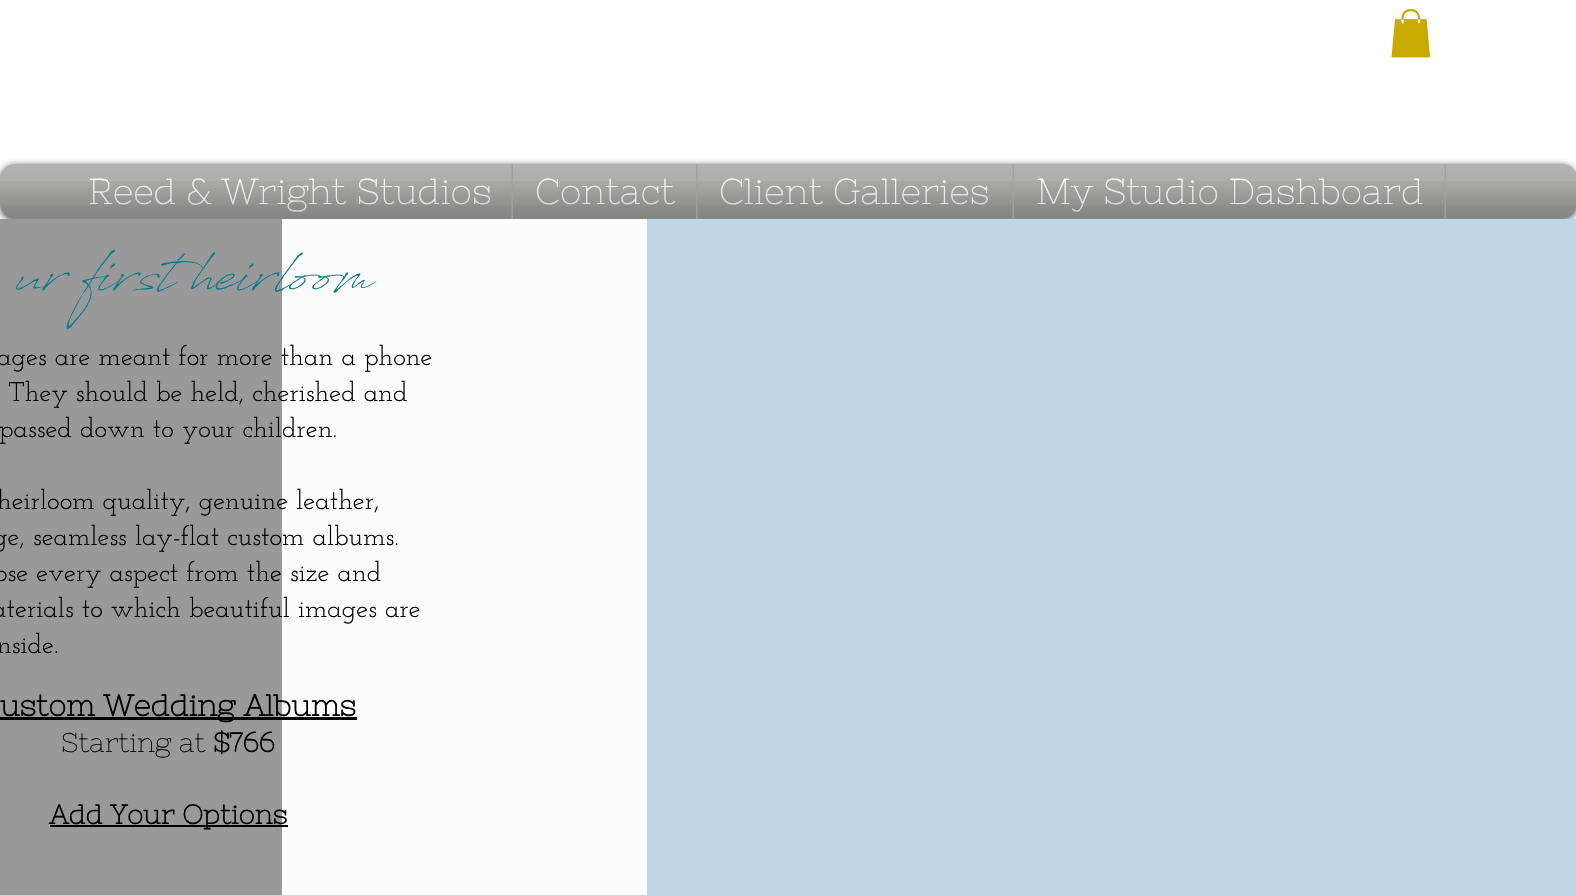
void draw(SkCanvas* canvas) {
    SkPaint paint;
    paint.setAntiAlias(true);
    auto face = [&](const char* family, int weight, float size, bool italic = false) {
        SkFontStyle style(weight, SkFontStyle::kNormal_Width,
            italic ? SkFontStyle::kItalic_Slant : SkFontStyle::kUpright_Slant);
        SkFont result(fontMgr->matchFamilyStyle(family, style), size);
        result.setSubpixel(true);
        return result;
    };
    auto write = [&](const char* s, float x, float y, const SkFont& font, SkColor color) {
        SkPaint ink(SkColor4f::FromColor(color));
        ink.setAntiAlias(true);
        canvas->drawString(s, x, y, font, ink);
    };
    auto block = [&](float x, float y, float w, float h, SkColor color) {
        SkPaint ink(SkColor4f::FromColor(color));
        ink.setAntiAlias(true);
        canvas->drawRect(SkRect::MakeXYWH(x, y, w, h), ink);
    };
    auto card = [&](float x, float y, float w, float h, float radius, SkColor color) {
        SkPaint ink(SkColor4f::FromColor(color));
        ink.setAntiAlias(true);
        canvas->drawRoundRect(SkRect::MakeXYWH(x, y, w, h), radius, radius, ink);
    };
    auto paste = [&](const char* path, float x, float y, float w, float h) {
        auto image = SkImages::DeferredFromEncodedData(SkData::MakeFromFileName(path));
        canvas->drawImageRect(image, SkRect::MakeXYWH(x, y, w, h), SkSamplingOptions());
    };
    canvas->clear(SK_ColorWHITE);
    paste("pic1.png", 1391, 9, 40, 49);
    paint.setColor(SkColorSetARGB(153, 0, 0, 0));
    paint.setMaskFilter(SkMaskFilter::MakeBlur(kNormal_SkBlurStyle, 3));
    canvas->drawRoundRect(SkRect::MakeXYWH(0, 165, 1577, 56), 15, 15, paint);
    paint.setMaskFilter(nullptr);
    card(0, 164, 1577, 55, 15, SkColorSetRGB(160, 160, 159));
    paste("pic2.png", 0, 164, 1576, 42);
    paste("pic3.png", 0, 181, 1576, 38);
    block(66, 164, 1446, 55, SkColorSetRGB(160, 160, 159));
    auto kFont1 = face("Nixie One", 400, 36);
    write("Reed & Wright Studios", 88, 204, kFont1, SK_ColorWHITE);
    paste("pic4.png", 66, 164, 446, 42);
    paste("pic5.png", 66, 181, 446, 38);
    write("Contact", 535, 204, kFont1, SK_ColorWHITE);
    paste("pic6.png", 513, 164, 183, 42);
    paste("pic7.png", 513, 181, 183, 38);
    write("Client Galleries", 719, 204, kFont1, SK_ColorWHITE);
    paste("pic8.png", 697, 164, 316, 42);
    paste("pic9.png", 697, 181, 316, 38);
    write("My Studio Dashboard", 1036, 204, kFont1, SK_ColorWHITE);
    paste("pic10.png", 1014, 164, 431, 42);
    paste("pic11.png", 1014, 181, 431, 38);
    paste("pic12.png", 1446, 164, 66, 42);
    paste("pic13.png", 1446, 181, 66, 38);
    block(0, 219, 282, 676, SkColorSetRGB(153, 153, 153));
    block(282, 219, 365, 676, SkColorSetRGB(252, 252, 252));
    block(647, 219, 929, 676, SkColorSetRGB(192, 213, 229));
    auto kFont2 = face("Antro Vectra", 400, 60);
    write("ur first heirloom", 16, 288, kFont2, SkColorSetRGB(5, 123, 143));
    auto kFont3 = face("Josefin Slab", 400, 27);
    write("ages are meant for more than a phone", -3, 365, kFont3, SK_ColorBLACK);
    write("They should be held, cherished and", 8, 401, kFont3, SK_ColorBLACK);
    write("passed down to your children.", -1, 437, kFont3, SK_ColorBLACK);
    write("heirloom quality, genuine leather,", -3, 509, kFont3, SK_ColorBLACK);
    write("ge, seamless lay-flat custom albums.", -7, 545, kFont3, SK_ColorBLACK);
    write("ose every aspect from the size and", -5, 581, kFont3, SK_ColorBLACK);
    write("aterials to which beautiful images are", -8, 617, kFont3, SK_ColorBLACK);
    write("nside.", -3, 653, kFont3, SK_ColorBLACK);
    block(0, 717, 357, 3, SK_ColorBLACK);
    auto kFont4 = face("Nixie One", 700, 30);
    write("ustom Wedding Albums", 0, 716, kFont4, SK_ColorBLACK);
    auto kFont5 = face("Nixie One", 400, 27);
    write("Starting at", 61, 752, kFont5, SK_ColorBLACK);
    auto kFont6 = face("Nixie One", 700, 27);
    write("$766", 213, 752, kFont6, SK_ColorBLACK);
    block(50, 825, 238, 2, SK_ColorBLACK);
    write("Add Your Options", 49, 824, kFont6, SK_ColorBLACK);
}
